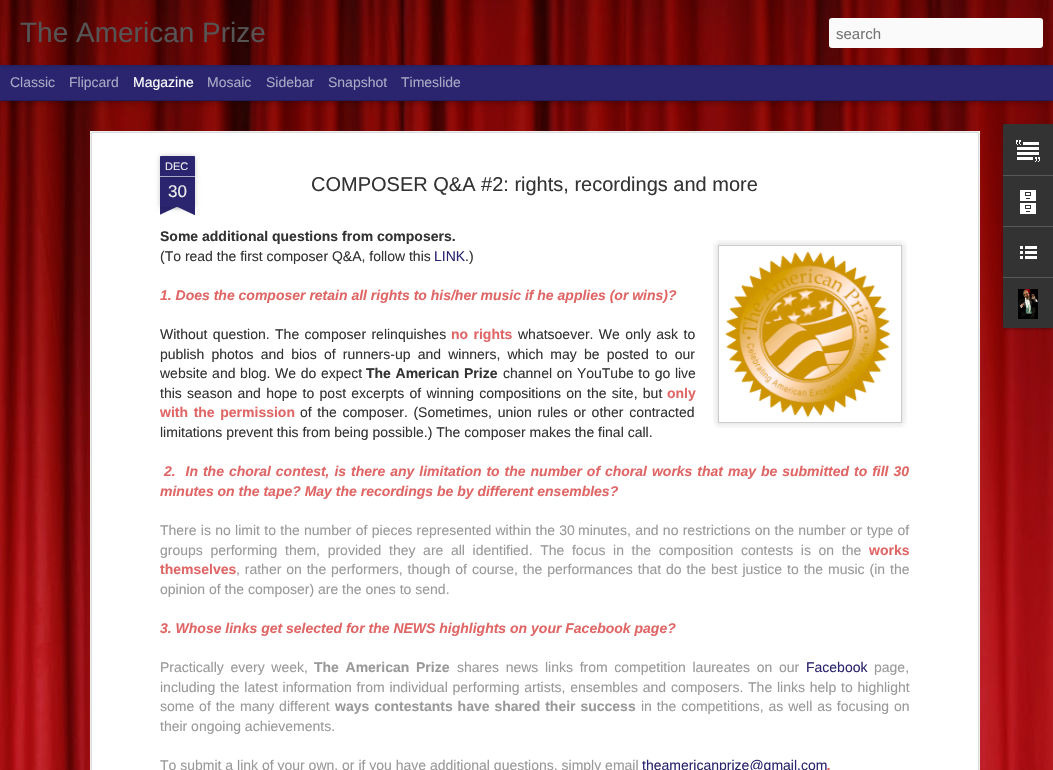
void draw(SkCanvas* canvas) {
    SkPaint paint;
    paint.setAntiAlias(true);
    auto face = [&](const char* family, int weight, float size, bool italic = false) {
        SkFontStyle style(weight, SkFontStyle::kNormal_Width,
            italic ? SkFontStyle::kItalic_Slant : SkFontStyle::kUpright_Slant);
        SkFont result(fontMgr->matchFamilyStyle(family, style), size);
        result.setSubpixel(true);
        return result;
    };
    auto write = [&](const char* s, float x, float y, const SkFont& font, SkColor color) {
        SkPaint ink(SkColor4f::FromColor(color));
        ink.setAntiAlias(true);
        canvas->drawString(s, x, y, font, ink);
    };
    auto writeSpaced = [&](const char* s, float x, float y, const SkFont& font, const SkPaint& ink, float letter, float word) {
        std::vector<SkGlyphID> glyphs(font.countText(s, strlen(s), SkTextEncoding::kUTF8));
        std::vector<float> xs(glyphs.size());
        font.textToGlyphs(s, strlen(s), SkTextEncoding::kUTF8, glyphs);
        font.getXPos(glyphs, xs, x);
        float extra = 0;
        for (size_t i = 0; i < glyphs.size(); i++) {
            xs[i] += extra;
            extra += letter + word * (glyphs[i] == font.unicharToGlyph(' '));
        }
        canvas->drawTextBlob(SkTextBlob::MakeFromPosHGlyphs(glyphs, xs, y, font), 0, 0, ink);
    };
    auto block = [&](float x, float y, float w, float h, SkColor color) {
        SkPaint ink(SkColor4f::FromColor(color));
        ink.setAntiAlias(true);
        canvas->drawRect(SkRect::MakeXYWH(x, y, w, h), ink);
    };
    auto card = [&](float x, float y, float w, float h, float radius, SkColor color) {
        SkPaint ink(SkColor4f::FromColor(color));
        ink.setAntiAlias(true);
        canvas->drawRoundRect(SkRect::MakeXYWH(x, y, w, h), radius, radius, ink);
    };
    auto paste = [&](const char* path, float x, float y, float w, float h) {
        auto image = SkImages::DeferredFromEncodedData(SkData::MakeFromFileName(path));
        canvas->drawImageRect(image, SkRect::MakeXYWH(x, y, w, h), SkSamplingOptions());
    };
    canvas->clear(SkColorSetRGB(43, 37, 111));
    paste("pic2.png", 0, 101, 1053, 669);
    paint.setColor(SkColorSetARGB(128, 0, 0, 0));
    paint.setMaskFilter(SkMaskFilter::MakeBlur(kNormal_SkBlurStyle, 4));
    canvas->drawRect(SkRect::MakeXYWH(0, 65, 1053, 35), paint);
    paint.setMaskFilter(nullptr);
    block(0, 65, 1053, 35, SkColorSetRGB(43, 37, 111));
    paint.setColor(SkColorSetARGB(77, 0, 0, 0));
    paint.setMaskFilter(SkMaskFilter::MakeBlur(kNormal_SkBlurStyle, 2.5f));
    canvas->drawRect(SkRect::MakeXYWH(0, 0, 1053, 65), paint);
    paint.setMaskFilter(nullptr);
    paste("pic1.png", 0, 0, 1053, 65);
    auto kFont1 = face("Liberation Sans", 400, 28);
    write("The American Prize", 20, 42, kFont1, SkColorSetRGB(85, 85, 85));
    card(829, 18, 214, 30, 3, SkColorSetRGB(250, 250, 250));
    auto kFont2 = face("Liberation Sans", 400, 15);
    write("search", 836, 39, kFont2, SkColorSetRGB(117, 117, 117));
    auto kFont3 = face("Liberation Sans", 400, 14);
    write("Classic", 10, 87, kFont3, SkColorSetRGB(170, 168, 197));
    write("Flipcard", 69, 87, kFont3, SkColorSetRGB(170, 168, 197));
    write("Magazine", 133, 87, kFont3, SK_ColorWHITE);
    write("Mosaic", 207, 87, kFont3, SkColorSetRGB(170, 168, 197));
    write("Sidebar", 266, 87, kFont3, SkColorSetRGB(170, 168, 197));
    write("Snapshot", 328, 87, kFont3, SkColorSetRGB(170, 168, 197));
    write("Timeslide", 401, 87, kFont3, SkColorSetRGB(170, 168, 197));
    block(90, 131, 890, 639, SK_ColorWHITE);
    paste("pic3.png", 90, 131, 890, 639);
    paint.setColor(SkColorSetARGB(51, 0, 0, 0));
    paint.setMaskFilter(SkMaskFilter::MakeBlur(kNormal_SkBlurStyle, 2.5f));
    canvas->drawRect(SkRect::MakeXYWH(160, 177, 35, 30), paint);
    paint.setMaskFilter(nullptr);
    block(160, 177, 35, 30, SkColorSetRGB(43, 37, 111));
    paint.setMaskFilter(SkMaskFilter::MakeBlur(kNormal_SkBlurStyle, 2.5f));
    canvas->drawRoundRect(SkRect::MakeXYWH(160, 156, 35, 21), 1, 1, paint);
    paint.setMaskFilter(nullptr);
    paint.setColor(SkColorSetRGB(43, 37, 111));
    canvas->drawPath(SkPathBuilder().moveTo(161, 156).lineTo(194, 156).cubicTo(194.5f, 156, 195, 156.5f, 195, 157).lineTo(195, 177).lineTo(160, 177).lineTo(160, 157).cubicTo(160, 156.5f, 160.5f, 156, 161, 156).close().detach(), paint);
    block(160, 176, 35, 1, SkColorSetRGB(170, 168, 197));
    auto kFont4 = face("Liberation Sans", 400, 11);
    write("DEC", 165, 170, kFont4, SkColorSetRGB(238, 238, 238));
    auto kFont5 = face("Liberation Sans", 400, 17);
    write("30", 168, 197, kFont5, SkColorSetRGB(238, 238, 238));
    canvas->save();
    canvas->clipRect(SkRect::MakeXYWH(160, 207, 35, 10));
    paint.setColor(SkColorSetARGB(51, 0, 0, 0));
    paint.setMaskFilter(SkMaskFilter::MakeBlur(kNormal_SkBlurStyle, 2.5f));
    canvas->drawRect(SkRect::MakeXYWH(151, 197, 50, 10), paint);
    paint.setMaskFilter(nullptr);
    canvas->restore();
    canvas->save();
    canvas->clipRect(SkRect::MakeXYWH(160, 207, 35, 10));
    paint.setColor(SkColorSetRGB(43, 37, 111));
    canvas->drawPath(SkPathBuilder().moveTo(151, 208).lineTo(196, 187).lineTo(200, 196).lineTo(155, 217).close().detach(), paint);
    canvas->restore();
    canvas->save();
    canvas->clipRect(SkRect::MakeXYWH(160, 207, 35, 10));
    paint.setColor(SkColorSetARGB(51, 0, 0, 0));
    paint.setMaskFilter(SkMaskFilter::MakeBlur(kNormal_SkBlurStyle, 2.5f));
    canvas->drawRect(SkRect::MakeXYWH(154, 197, 50, 10), paint);
    paint.setMaskFilter(nullptr);
    canvas->restore();
    canvas->save();
    canvas->clipRect(SkRect::MakeXYWH(160, 207, 35, 10));
    paint.setColor(SkColorSetRGB(43, 37, 111));
    canvas->drawPath(SkPathBuilder().moveTo(158, 187).lineTo(203, 208).lineTo(199, 217).lineTo(154, 196).close().detach(), paint);
    canvas->restore();
    auto kFont6 = face("Liberation Sans", 400, 20);
    write("COMPOSER Q&A #2: rights, recordings and more", 311, 191, kFont6, SkColorSetRGB(51, 51, 51));
    auto kFont7 = face("Liberation Sans", 700, 14);
    write("Some additional questions from composers.", 160, 241, kFont7, SkColorSetRGB(51, 51, 51));
    write("(To read the first composer Q&A, follow this", 160, 261, kFont3, SkColorSetRGB(51, 51, 51));
    write("LINK", 434, 261, kFont3, SkColorSetRGB(43, 37, 111));
    write(".)", 465, 261, kFont3, SkColorSetRGB(51, 51, 51));
    paste("pic4.png", 713, 240, 194, 188);
    paste("pic5.png", 725, 251, 166, 166);
    auto kFont8 = face("Liberation Sans", 700, 14, true);
    write("1. Does the composer retain all rights to his/her music if he applies (or wins)?", 160, 300, kFont8, SkColorSetRGB(224, 102, 102));
    paint.setColor(SkColorSetRGB(51, 51, 51));
    writeSpaced("Without question. The composer relinquishes", 160, 339, kFont3, paint, 0, 1.5f);
    paint.setColor(SkColorSetRGB(224, 102, 102));
    writeSpaced("no rights", 451, 339, kFont7, paint, 0, 1.5f);
    paint.setColor(SkColorSetRGB(51, 51, 51));
    writeSpaced("whatsoever. We only ask to", 518, 339, kFont3, paint, 0, 1.5f);
    writeSpaced("publish photos and bios of runners-up and winners, which may be posted to our", 160, 359, kFont3, paint, 0, 3.25f);
    writeSpaced("website and blog. We do expect", 160, 378, kFont3, paint, 0, 0.75f);
    writeSpaced("The American Prize", 366, 378, kFont7, paint, 0, 0.75f);
    writeSpaced("channel on YouTube to go live", 503, 378, kFont3, paint, 0, 0.75f);
    writeSpaced("this season and hope to post excerpts of winning compositions on the site, but", 160, 398, kFont3, paint, 0, 1.4f);
    write("only", 667, 398, kFont7, SkColorSetRGB(224, 102, 102));
    paint.setColor(SkColorSetRGB(224, 102, 102));
    writeSpaced("with the permission", 160, 417, kFont7, paint, 0, 1.75f);
    paint.setColor(SkColorSetRGB(51, 51, 51));
    writeSpaced("of the composer. (Sometimes, union rules or other contracted", 300, 417, kFont3, paint, 0, 1.75f);
    write("limitations prevent this from being possible.) The composer makes the final call.", 160, 437, kFont3, SkColorSetRGB(51, 51, 51));
    paint.setColor(SkColorSetRGB(224, 102, 102));
    writeSpaced("2.  In the choral contest, is there any limitation to the number of choral works that may be submitted to fill 30", 164, 476, kFont8, paint, 0, 1.05f);
    write("minutes on the tape? May the recordings be by different ensembles?", 160, 496, kFont8, SkColorSetRGB(224, 102, 102));
    paint.setColor(SkColorSetRGB(153, 153, 153));
    writeSpaced("There is no limit to the number of pieces represented within the 30", 160, 535, kFont3, paint, 0, 0.4f);
    writeSpaced("minutes, and no restrictions on the number or type of", 578, 535, kFont3, paint, 0, 0.4f);
    writeSpaced("groups performing", 160, 555, kFont3, paint, 0, 3.75f);
    writeSpaced("them, provided they are all identified. The focus in the composition", 285, 555, kFont3, paint, 0, 3.75f);
    writeSpaced("contests is on the", 741, 555, kFont3, paint, 0, 3.75f);
    write("works", 869, 555, kFont7, SkColorSetRGB(224, 102, 102));
    write("themselves", 160, 574, kFont7, SkColorSetRGB(224, 102, 102));
    writeSpaced(", rather on the performers, though of", 236, 574, kFont3, paint, 0, 1);
    writeSpaced("course, the performances that do the best justice to the music (in the", 472, 574, kFont3, paint, 0, 1.05f);
    write("opinion of the composer) are the ones to send.", 160, 594, kFont3, SkColorSetRGB(153, 153, 153));
    write("3. Whose links get selected for the NEWS highlights on your Facebook page?", 160, 633, kFont8, SkColorSetRGB(224, 102, 102));
    writeSpaced("Practically every week,", 160, 672, kFont3, paint, 0, 2.75f);
    writeSpaced("The American Prize", 314, 672, kFont7, paint, 0, 2.75f);
    writeSpaced("shares news links from competition laureates on our", 457, 672, kFont3, paint, 0, 2.75f);
    write("Facebook", 806, 672, kFont3, SkColorSetRGB(43, 37, 111));
    write("page,", 874, 672, kFont3, SkColorSetRGB(153, 153, 153));
    writeSpaced("including the latest information from individual performing artists, ensembles and composers. The links help to highlight", 160, 692, kFont3, paint, 0, 0.9f);
    writeSpaced("some of the", 160, 711, kFont3, paint, 0, 1);
    writeSpaced("many different", 240, 711, kFont3, paint, 0, 1);
    writeSpaced("ways contestants have shared their success", 335, 711, kFont7, paint, 0, 1);
    writeSpaced("in the competitions, as well as focusing on", 641, 711, kFont3, paint, 0, 1);
    write("their ongoing achievements.", 160, 731, kFont3, SkColorSetRGB(153, 153, 153));
    write("To submit a link of your own, or if you have additional questions, simply email", 160, 770, kFont3, SkColorSetRGB(153, 153, 153));
    write("theamericanprize@gmail.com", 642, 770, kFont3, SkColorSetRGB(43, 37, 111));
    write(".", 827, 770, kFont8, SkColorSetRGB(224, 102, 102));
    paint.setColor(SkColorSetARGB(77, 0, 0, 0));
    paint.setMaskFilter(SkMaskFilter::MakeBlur(kNormal_SkBlurStyle, 1.5f));
    canvas->drawRoundRect(SkRect::MakeXYWH(1003, 125, 50, 204), 2, 2, paint);
    paint.setMaskFilter(nullptr);
    paint.setColor(SkColorSetRGB(51, 51, 51));
    canvas->drawPath(SkPathBuilder().moveTo(1005, 124).lineTo(1053, 124).lineTo(1053, 328).lineTo(1005, 328).cubicTo(1004, 328, 1003, 327, 1003, 326).lineTo(1003, 126).cubicTo(1003, 125, 1004, 124, 1005, 124).close().detach(), paint);
    canvas->drawPath(SkPathBuilder().moveTo(1005, 124).lineTo(1053, 124).lineTo(1053, 175).lineTo(1003, 175).lineTo(1003, 126).cubicTo(1003, 125, 1004, 124, 1005, 124).close().detach(), paint);
    paste("pic6.png", 1016, 140, 24, 22);
    block(1003, 175, 50, 1, SkColorSetRGB(88, 88, 88));
    paste("pic7.png", 1020, 190, 16, 24);
    block(1003, 226, 50, 1, SkColorSetRGB(88, 88, 88));
    paste("pic8.png", 1020, 246, 17, 13);
    canvas->drawPath(SkPathBuilder().moveTo(1003, 277).lineTo(1053, 277).lineTo(1053, 328).lineTo(1005, 328).cubicTo(1004, 328, 1003, 327, 1003, 326).close().detach(), paint);
    block(1003, 277, 50, 1, SkColorSetRGB(88, 88, 88));
    paste("pic9.png", 1018, 289, 20, 30);
}
